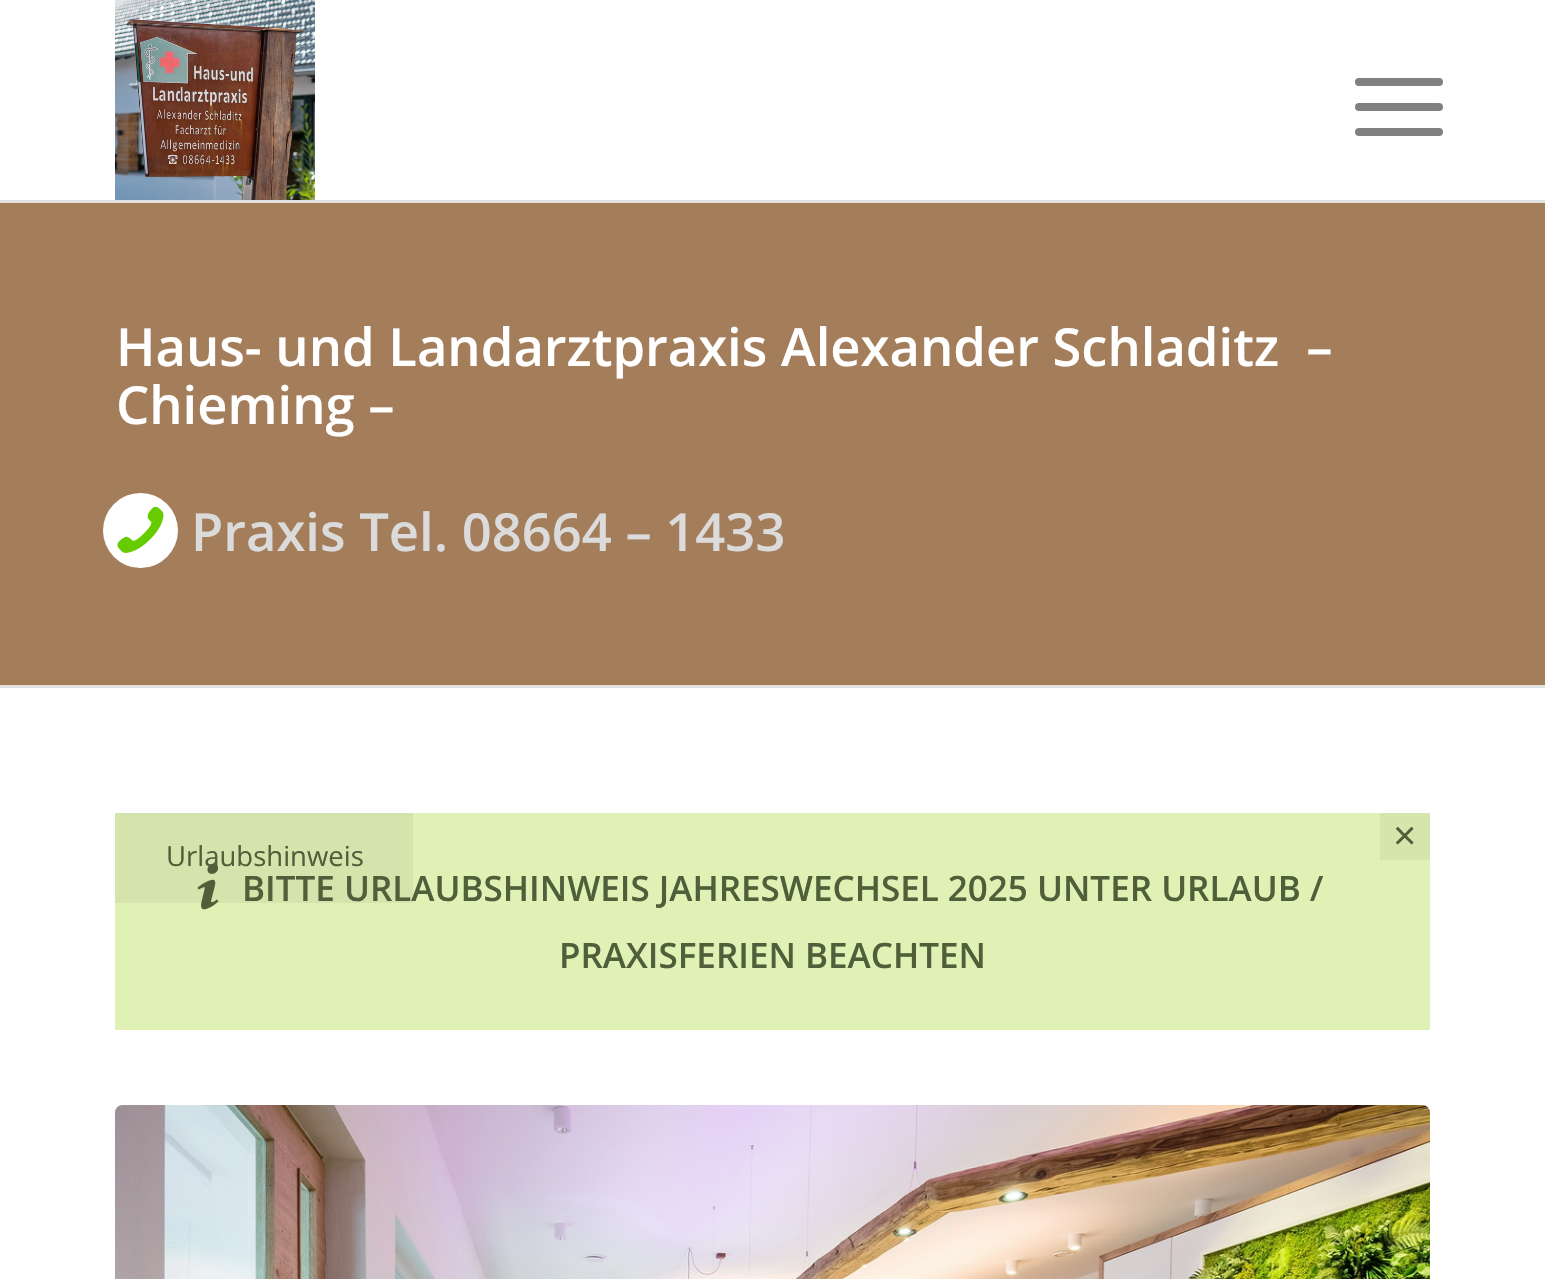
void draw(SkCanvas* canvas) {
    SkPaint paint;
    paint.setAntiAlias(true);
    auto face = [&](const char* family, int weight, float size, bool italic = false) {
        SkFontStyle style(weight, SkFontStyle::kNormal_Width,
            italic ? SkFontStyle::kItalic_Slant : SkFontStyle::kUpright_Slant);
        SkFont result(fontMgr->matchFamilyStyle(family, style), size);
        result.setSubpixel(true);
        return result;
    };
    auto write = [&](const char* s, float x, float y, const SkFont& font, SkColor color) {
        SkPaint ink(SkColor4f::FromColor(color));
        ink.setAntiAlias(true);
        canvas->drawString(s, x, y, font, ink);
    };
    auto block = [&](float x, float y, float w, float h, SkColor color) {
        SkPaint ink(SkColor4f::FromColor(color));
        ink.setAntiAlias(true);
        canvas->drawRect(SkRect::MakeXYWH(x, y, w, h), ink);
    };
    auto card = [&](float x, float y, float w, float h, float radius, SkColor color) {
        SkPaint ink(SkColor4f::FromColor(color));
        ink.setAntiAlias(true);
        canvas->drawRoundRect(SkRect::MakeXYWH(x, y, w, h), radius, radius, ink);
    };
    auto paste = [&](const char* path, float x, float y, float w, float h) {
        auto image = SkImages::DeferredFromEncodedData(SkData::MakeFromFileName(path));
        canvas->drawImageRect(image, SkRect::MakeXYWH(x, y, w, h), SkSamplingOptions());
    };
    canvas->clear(SK_ColorWHITE);
    block(0, 200, 1545, 3, SkColorSetRGB(225, 225, 225));
    paste("pic1.png", 115, 0, 200, 200);
    card(1355, 103, 88, 8, 4, SkColorSetRGB(128, 128, 128));
    card(1355, 78, 88, 8, 4, SkColorSetRGB(128, 128, 128));
    card(1355, 128, 88, 8, 4, SkColorSetRGB(128, 128, 128));
    block(0, 203, 1545, 482, SkColorSetRGB(164, 125, 91));
    auto kFont1 = face("Open Sans", 600, 52.5f);
    write("Haus- und Landarztpraxis Alexander Schladitz  –", 116, 366, kFont1, SK_ColorWHITE);
    write("Chieming –", 116, 424, kFont1, SK_ColorWHITE);
    paint.setColor(SK_ColorWHITE);
    canvas->drawCircle(140.5f, 530.5f, 37.5f, paint);
    paste("pic2.png", 117, 506, 47, 47);
    write("Praxis Tel. 08664 – 1433", 191, 551, kFont1, SkColorSetRGB(219, 219, 219));
    block(0, 685, 1545, 3, SkColorSetRGB(225, 225, 225));
    block(115, 813, 1315, 217, SkColorSetRGB(224, 241, 181));
    block(1380, 813, 50, 47, SkColorSetRGB(213, 229, 172));
    auto kFont2 = face("Liberation Sans", 400, 40);
    write("×", 1393, 849, kFont2, SkColorSetRGB(79, 95, 57));
    block(115, 813, 298, 90, SkColorSetARGB(13, 0, 0, 0));
    auto kFont3 = face("Open Sans", 400, 27.5f);
    write("Urlaubshinweis", 166, 866, kFont3, SkColorSetRGB(79, 95, 57));
    paste("pic3.png", 197, 863, 22, 47);
    auto kFont4 = face("Open Sans", 600, 35);
    write("BITTE URLAUBSHINWEIS JAHRESWECHSEL 2025 UNTER URLAUB /", 242, 901, kFont4, SkColorSetRGB(79, 95, 57));
    write("PRAXISFERIEN BEACHTEN", 559, 968, kFont4, SkColorSetRGB(79, 95, 57));
    paste("pic4.png", 115, 1105, 1315, 174);
}
